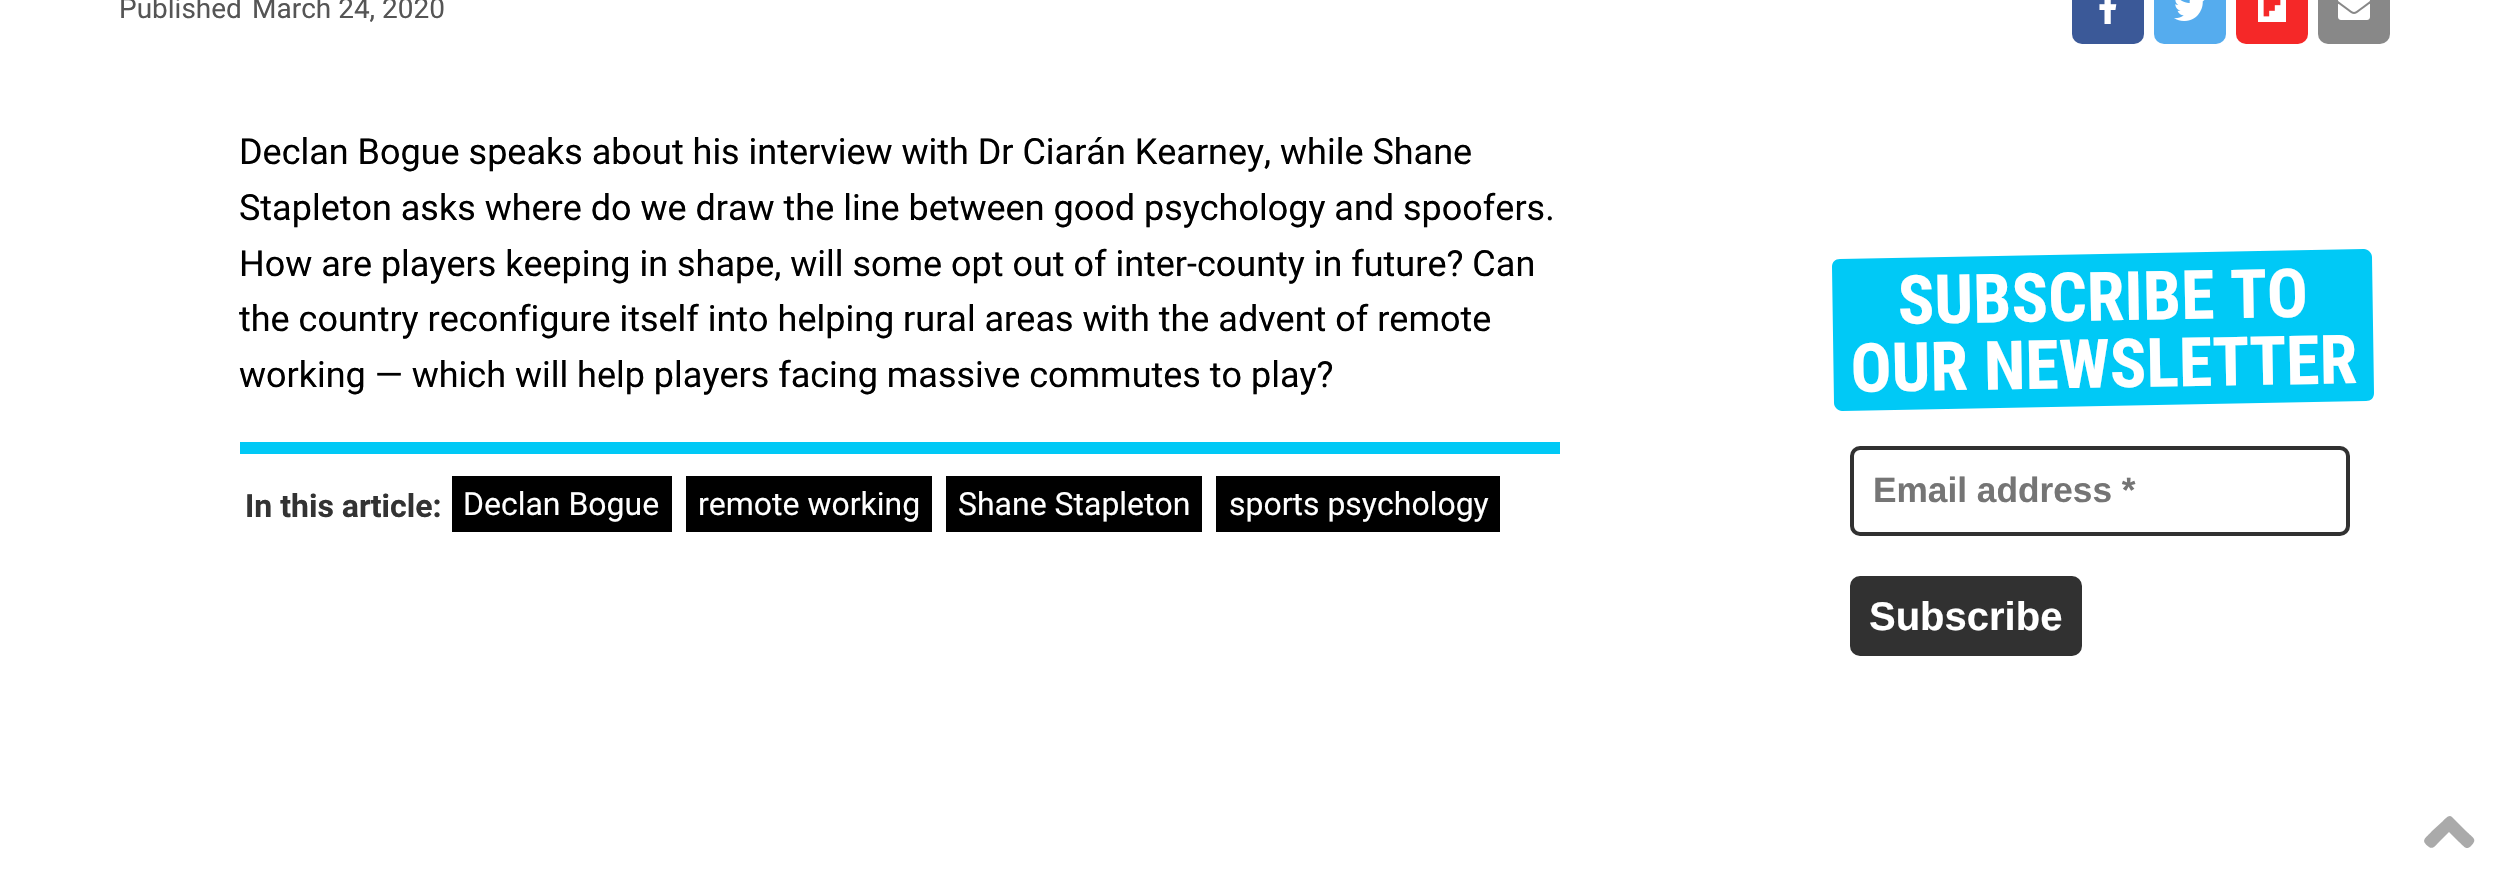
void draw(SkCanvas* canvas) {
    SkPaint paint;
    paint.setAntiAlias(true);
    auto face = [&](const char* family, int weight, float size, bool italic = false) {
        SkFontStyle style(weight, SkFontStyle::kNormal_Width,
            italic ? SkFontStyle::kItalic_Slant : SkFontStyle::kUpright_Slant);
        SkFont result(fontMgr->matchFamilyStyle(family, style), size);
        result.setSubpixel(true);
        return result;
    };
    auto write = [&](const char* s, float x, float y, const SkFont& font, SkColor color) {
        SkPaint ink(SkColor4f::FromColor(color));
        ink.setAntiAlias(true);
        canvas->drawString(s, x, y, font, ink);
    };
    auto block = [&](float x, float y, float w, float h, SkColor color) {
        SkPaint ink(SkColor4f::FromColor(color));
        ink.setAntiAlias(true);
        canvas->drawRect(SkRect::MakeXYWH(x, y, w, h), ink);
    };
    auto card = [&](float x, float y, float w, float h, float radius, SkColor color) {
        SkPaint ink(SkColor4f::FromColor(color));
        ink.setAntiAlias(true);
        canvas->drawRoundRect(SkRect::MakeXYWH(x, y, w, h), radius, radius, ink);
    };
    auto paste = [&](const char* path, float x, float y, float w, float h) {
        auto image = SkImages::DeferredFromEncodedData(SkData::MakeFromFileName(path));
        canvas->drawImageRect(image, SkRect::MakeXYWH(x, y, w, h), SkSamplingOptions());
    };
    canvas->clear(SK_ColorWHITE);
    auto kFont1 = face("Roboto", 400, 28);
    write("Published", 119, 18, kFont1, SkColorSetRGB(85, 85, 85));
    write("March 24, 2020", 252, 18, kFont1, SkColorSetRGB(85, 85, 85));
    card(2072, -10, 72, 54, 10, SkColorSetRGB(59, 89, 152));
    paste("pic1.png", 2099, 0, 18, 24);
    card(2154, -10, 72, 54, 10, SkColorSetRGB(85, 172, 238));
    paste("pic2.png", 2174, 0, 31, 21);
    card(2236, -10, 72, 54, 10, SkColorSetRGB(245, 40, 40));
    paste("pic3.png", 2258, 0, 28, 22);
    card(2318, -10, 72, 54, 10, SkColorSetRGB(136, 136, 136));
    paste("pic4.png", 2338, 0, 32, 20);
    auto kFont2 = face("Roboto", 400, 36);
    write("Declan Bogue speaks about his interview with Dr Ciarán Kearney, while Shane", 239, 164, kFont2, SK_ColorBLACK);
    write("Stapleton asks where do we draw the line between good psychology and spoofers.", 239, 220, kFont2, SK_ColorBLACK);
    write("How are players keeping in shape, will some opt out of inter-county in future? Can", 239, 276, kFont2, SK_ColorBLACK);
    write("the country reconfigure itself into helping rural areas with the advent of remote", 239, 331, kFont2, SK_ColorBLACK);
    write("working — which will help players facing massive commutes to play?", 239, 387, kFont2, SK_ColorBLACK);
    block(240, 442, 1320, 12, SkColorSetRGB(0, 201, 246));
    auto kFont3 = face("Roboto", 700, 32);
    write("In this article:", 245, 517, kFont3, SkColorSetRGB(51, 51, 51));
    block(452, 476, 220, 56, SK_ColorBLACK);
    auto kFont4 = face("Roboto", 400, 32);
    write("Declan Bogue", 463, 515, kFont4, SK_ColorWHITE);
    block(686, 476, 246, 56, SK_ColorBLACK);
    write("remote working", 698, 515, kFont4, SK_ColorWHITE);
    block(946, 476, 256, 56, SK_ColorBLACK);
    write("Shane Stapleton", 958, 515, kFont4, SK_ColorWHITE);
    block(1216, 476, 284, 56, SK_ColorBLACK);
    write("sports psychology", 1229, 515, kFont4, SK_ColorWHITE);
    paint.setColor(SkColorSetRGB(0, 201, 246));
    canvas->drawPath(SkPathBuilder().moveTo(1840, 259).lineTo(2364, 249).cubicTo(2368, 249, 2372, 253, 2372, 257).lineTo(2374, 393).cubicTo(2374, 398, 2371, 401, 2366, 401).lineTo(1842, 411).cubicTo(1838, 411, 1834, 407, 1834, 403).lineTo(1832, 267).cubicTo(1832, 262, 1835, 259, 1840, 259).close().detach(), paint);
    auto kFont5 = face("Roboto Condensed", 700, 68);
    canvas->save();
    canvas->rotate(-1, 1898, 324);
    write("SUBSCRIBE TO", 1898, 324, kFont5, SK_ColorWHITE);
    canvas->restore();
    canvas->save();
    canvas->rotate(-1, 1851, 392);
    write("OUR NEWSLETTER", 1851, 392, kFont5, SK_ColorWHITE);
    canvas->restore();
    paint.setStyle(SkPaint::kStroke_Style);
    paint.setStrokeWidth(4);
    paint.setColor(SkColorSetRGB(49, 49, 49));
    canvas->drawRoundRect(SkRect::MakeXYWH(1852, 448, 496, 86), 8, 8, paint);
    auto kFont6 = face("Liberation Sans", 700, 35.25f);
    write("Email address *", 1873, 502, kFont6, SkColorSetRGB(117, 117, 117));
    paint.setStyle(SkPaint::kFill_Style);
    canvas->drawRoundRect(SkRect::MakeXYWH(1854, 580, 224, 72), 6, 6, paint);
    paint.setStyle(SkPaint::kStroke_Style);
    paint.setStrokeWidth(8);
    canvas->drawRoundRect(SkRect::MakeXYWH(1854, 580, 224, 72), 6, 6, paint);
    auto kFont7 = face("Liberation Sans", 700, 40);
    write("Subscribe", 1869, 630, kFont7, SK_ColorWHITE);
    paint.setStyle(SkPaint::kFill_Style);
    paint.setColor(SkColorSetRGB(170, 170, 170));
    canvas->drawPath(SkPathBuilder().moveTo(2452, 817).lineTo(2466, 831).cubicTo(2473, 838, 2478, 839, 2471, 846).cubicTo(2466, 851, 2464, 846, 2459, 842).lineTo(2449, 832).lineTo(2439, 842).cubicTo(2437, 844, 2433, 850, 2429, 847).cubicTo(2420, 840, 2425, 839, 2432, 831).lineTo(2443, 821).cubicTo(2445, 819, 2449, 814, 2452, 817).close().detach(), paint);
}
